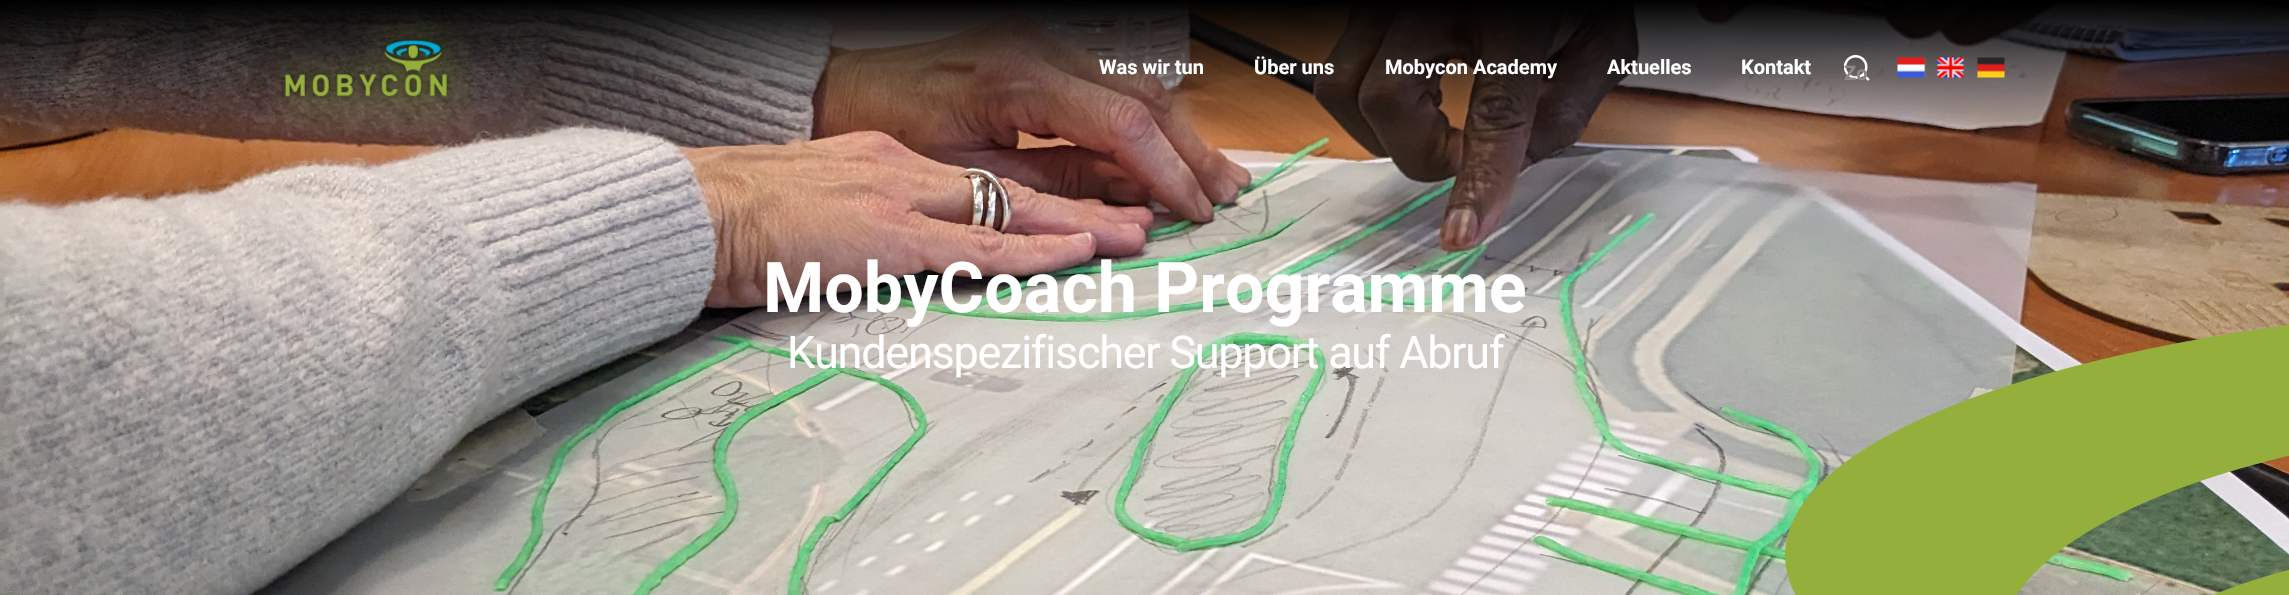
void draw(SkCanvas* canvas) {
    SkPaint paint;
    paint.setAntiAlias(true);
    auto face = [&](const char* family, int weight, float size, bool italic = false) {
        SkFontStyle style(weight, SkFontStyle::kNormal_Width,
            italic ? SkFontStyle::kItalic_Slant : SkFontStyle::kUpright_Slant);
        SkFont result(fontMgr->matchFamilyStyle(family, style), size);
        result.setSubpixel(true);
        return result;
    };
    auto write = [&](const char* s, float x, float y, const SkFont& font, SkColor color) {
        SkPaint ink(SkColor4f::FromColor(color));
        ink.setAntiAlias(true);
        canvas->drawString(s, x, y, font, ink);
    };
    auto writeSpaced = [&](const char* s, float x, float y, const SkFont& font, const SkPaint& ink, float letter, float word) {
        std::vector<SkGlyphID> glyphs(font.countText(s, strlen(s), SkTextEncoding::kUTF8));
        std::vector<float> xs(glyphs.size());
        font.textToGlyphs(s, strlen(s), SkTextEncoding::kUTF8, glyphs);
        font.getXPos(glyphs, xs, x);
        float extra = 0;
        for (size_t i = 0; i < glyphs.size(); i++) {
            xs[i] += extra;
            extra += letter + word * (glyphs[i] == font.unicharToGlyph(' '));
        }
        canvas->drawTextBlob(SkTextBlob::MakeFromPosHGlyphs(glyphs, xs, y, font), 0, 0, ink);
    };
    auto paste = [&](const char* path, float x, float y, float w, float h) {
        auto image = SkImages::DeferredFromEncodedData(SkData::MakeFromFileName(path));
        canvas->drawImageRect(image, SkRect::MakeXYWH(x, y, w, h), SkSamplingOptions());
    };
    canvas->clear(SK_ColorWHITE);
    paste("pic6.png", 0, 0, 2289, 595);
    paste("pic1.png", 267, 15, 208, 116);
    auto kFont1 = face("Roboto", 700, 20);
    write("Was wir tun", 1099, 74, kFont1, SK_ColorWHITE);
    write("Über uns", 1254, 74, kFont1, SK_ColorWHITE);
    write("Mobycon Academy", 1385, 74, kFont1, SK_ColorWHITE);
    write("Aktuelles", 1607, 74, kFont1, SK_ColorWHITE);
    write("Kontakt", 1741, 74, kFont1, SK_ColorWHITE);
    paste("pic2.png", 1844, 55, 26, 26);
    write("Zo", 1844, 80, kFont1, SkColorSetRGB(141, 136, 136));
    paste("pic3.png", 1897, 57, 29, 21);
    paste("pic4.png", 1937, 57, 27, 21);
    paste("pic5.png", 1977, 57, 28, 21);
    auto kFont2 = face("Roboto", 700, 70);
    write("MobyCoach Programme", 763, 312, kFont2, SK_ColorWHITE);
    auto kFont3 = face("Roboto", 400, 45);
    paint.setColor(SK_ColorWHITE);
    writeSpaced("Kundenspezifischer Support auf Abruf", 787, 368, kFont3, paint, -1.25f, 0);
    paste("pic7.png", 1785, 325, 504, 270);
}
